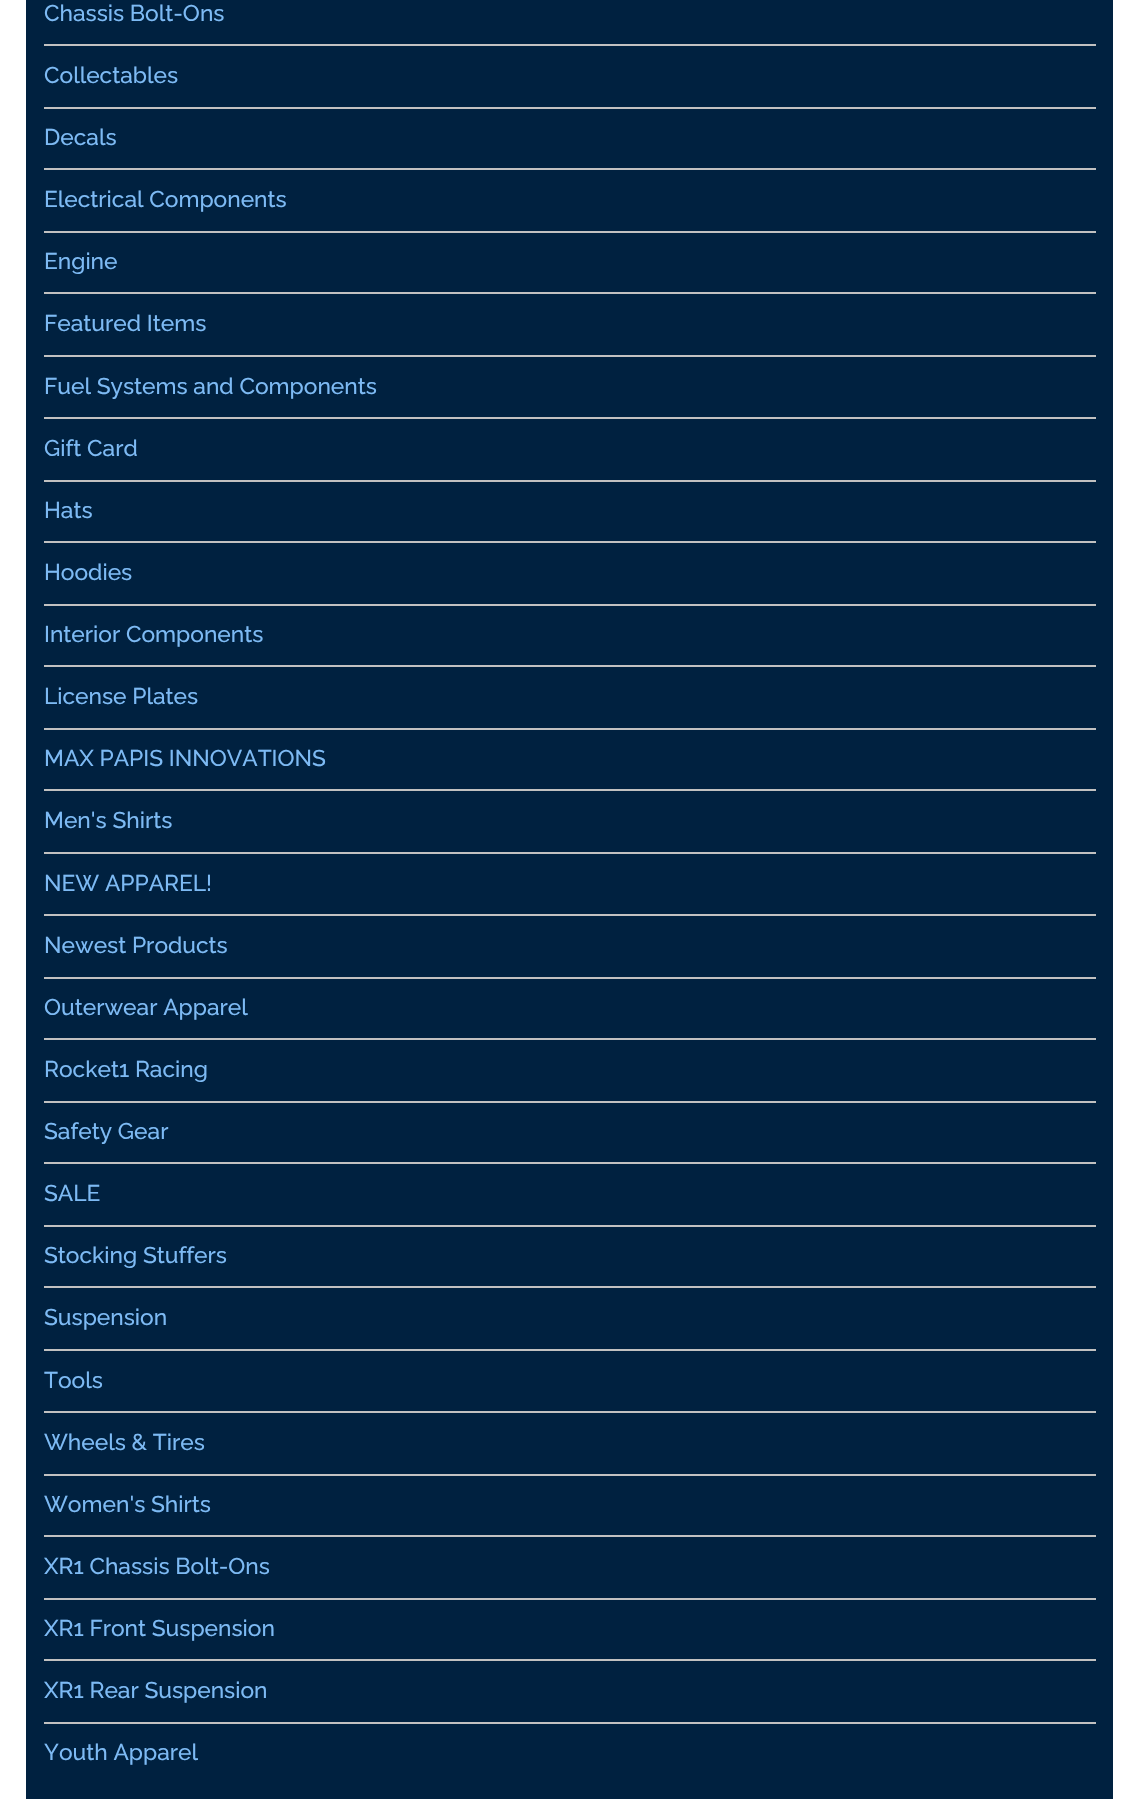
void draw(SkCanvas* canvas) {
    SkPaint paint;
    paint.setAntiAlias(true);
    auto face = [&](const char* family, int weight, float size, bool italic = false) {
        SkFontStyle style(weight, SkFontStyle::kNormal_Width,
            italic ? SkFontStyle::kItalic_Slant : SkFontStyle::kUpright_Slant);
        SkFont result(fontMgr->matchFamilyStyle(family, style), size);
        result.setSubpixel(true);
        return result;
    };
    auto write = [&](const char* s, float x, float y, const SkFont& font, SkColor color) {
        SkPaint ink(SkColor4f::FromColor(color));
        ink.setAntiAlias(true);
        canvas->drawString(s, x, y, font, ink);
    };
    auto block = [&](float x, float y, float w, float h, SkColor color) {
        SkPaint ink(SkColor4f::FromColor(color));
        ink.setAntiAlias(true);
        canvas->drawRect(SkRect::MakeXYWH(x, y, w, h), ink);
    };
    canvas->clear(SK_ColorWHITE);
    block(26, 0, 1087, 1799, SkColorSetRGB(0, 33, 64));
    auto kFont1 = face("Raleway", 500, 22.75f);
    write("Chassis Bolt-Ons", 44, 21, kFont1, SkColorSetRGB(125, 186, 244));
    block(44, 44, 1052, 2, SkColorSetRGB(193, 193, 193));
    write("Collectables", 44, 83, kFont1, SkColorSetRGB(125, 186, 244));
    block(44, 107, 1052, 2, SkColorSetRGB(193, 193, 193));
    write("Decals", 44, 145, kFont1, SkColorSetRGB(125, 186, 244));
    block(44, 168, 1052, 2, SkColorSetRGB(193, 193, 193));
    write("Electrical Components", 44, 207, kFont1, SkColorSetRGB(125, 186, 244));
    block(44, 231, 1052, 2, SkColorSetRGB(193, 193, 193));
    write("Engine", 44, 269, kFont1, SkColorSetRGB(125, 186, 244));
    block(44, 292, 1052, 2, SkColorSetRGB(193, 193, 193));
    write("Featured Items", 44, 331, kFont1, SkColorSetRGB(125, 186, 244));
    block(44, 355, 1052, 2, SkColorSetRGB(193, 193, 193));
    write("Fuel Systems and Components", 44, 394, kFont1, SkColorSetRGB(125, 186, 244));
    block(44, 417, 1052, 2, SkColorSetRGB(193, 193, 193));
    write("Gift Card", 44, 456, kFont1, SkColorSetRGB(125, 186, 244));
    block(44, 480, 1052, 2, SkColorSetRGB(193, 193, 193));
    write("Hats", 44, 518, kFont1, SkColorSetRGB(125, 186, 244));
    block(44, 541, 1052, 2, SkColorSetRGB(193, 193, 193));
    write("Hoodies", 44, 580, kFont1, SkColorSetRGB(125, 186, 244));
    block(44, 604, 1052, 2, SkColorSetRGB(193, 193, 193));
    write("Interior Components", 44, 642, kFont1, SkColorSetRGB(125, 186, 244));
    block(44, 665, 1052, 2, SkColorSetRGB(193, 193, 193));
    write("License Plates", 44, 704, kFont1, SkColorSetRGB(125, 186, 244));
    block(44, 728, 1052, 2, SkColorSetRGB(193, 193, 193));
    write("MAX PAPIS INNOVATIONS", 44, 766, kFont1, SkColorSetRGB(125, 186, 244));
    block(44, 789, 1052, 2, SkColorSetRGB(193, 193, 193));
    write("Men's Shirts", 44, 828, kFont1, SkColorSetRGB(125, 186, 244));
    block(44, 852, 1052, 2, SkColorSetRGB(193, 193, 193));
    write("NEW APPAREL!", 44, 891, kFont1, SkColorSetRGB(125, 186, 244));
    block(44, 914, 1052, 2, SkColorSetRGB(193, 193, 193));
    write("Newest Products", 44, 953, kFont1, SkColorSetRGB(125, 186, 244));
    block(44, 977, 1052, 2, SkColorSetRGB(193, 193, 193));
    write("Outerwear Apparel", 44, 1015, kFont1, SkColorSetRGB(125, 186, 244));
    block(44, 1038, 1052, 2, SkColorSetRGB(193, 193, 193));
    write("Rocket1 Racing", 44, 1077, kFont1, SkColorSetRGB(125, 186, 244));
    block(44, 1101, 1052, 2, SkColorSetRGB(193, 193, 193));
    write("Safety Gear", 44, 1139, kFont1, SkColorSetRGB(125, 186, 244));
    block(44, 1162, 1052, 2, SkColorSetRGB(193, 193, 193));
    write("SALE", 44, 1201, kFont1, SkColorSetRGB(125, 186, 244));
    block(44, 1225, 1052, 2, SkColorSetRGB(193, 193, 193));
    write("Stocking Stuffers", 44, 1263, kFont1, SkColorSetRGB(125, 186, 244));
    block(44, 1286, 1052, 2, SkColorSetRGB(193, 193, 193));
    write("Suspension", 44, 1325, kFont1, SkColorSetRGB(125, 186, 244));
    block(44, 1349, 1052, 2, SkColorSetRGB(193, 193, 193));
    write("Tools", 44, 1388, kFont1, SkColorSetRGB(125, 186, 244));
    block(44, 1411, 1052, 2, SkColorSetRGB(193, 193, 193));
    write("Wheels & Tires", 44, 1450, kFont1, SkColorSetRGB(125, 186, 244));
    block(44, 1474, 1052, 2, SkColorSetRGB(193, 193, 193));
    write("Women's Shirts", 44, 1512, kFont1, SkColorSetRGB(125, 186, 244));
    block(44, 1535, 1052, 2, SkColorSetRGB(193, 193, 193));
    write("XR1 Chassis Bolt-Ons", 44, 1574, kFont1, SkColorSetRGB(125, 186, 244));
    block(44, 1598, 1052, 2, SkColorSetRGB(193, 193, 193));
    write("XR1 Front Suspension", 44, 1636, kFont1, SkColorSetRGB(125, 186, 244));
    block(44, 1659, 1052, 2, SkColorSetRGB(193, 193, 193));
    write("XR1 Rear Suspension", 44, 1698, kFont1, SkColorSetRGB(125, 186, 244));
    block(44, 1722, 1052, 2, SkColorSetRGB(193, 193, 193));
    write("Youth Apparel", 44, 1760, kFont1, SkColorSetRGB(125, 186, 244));
}
